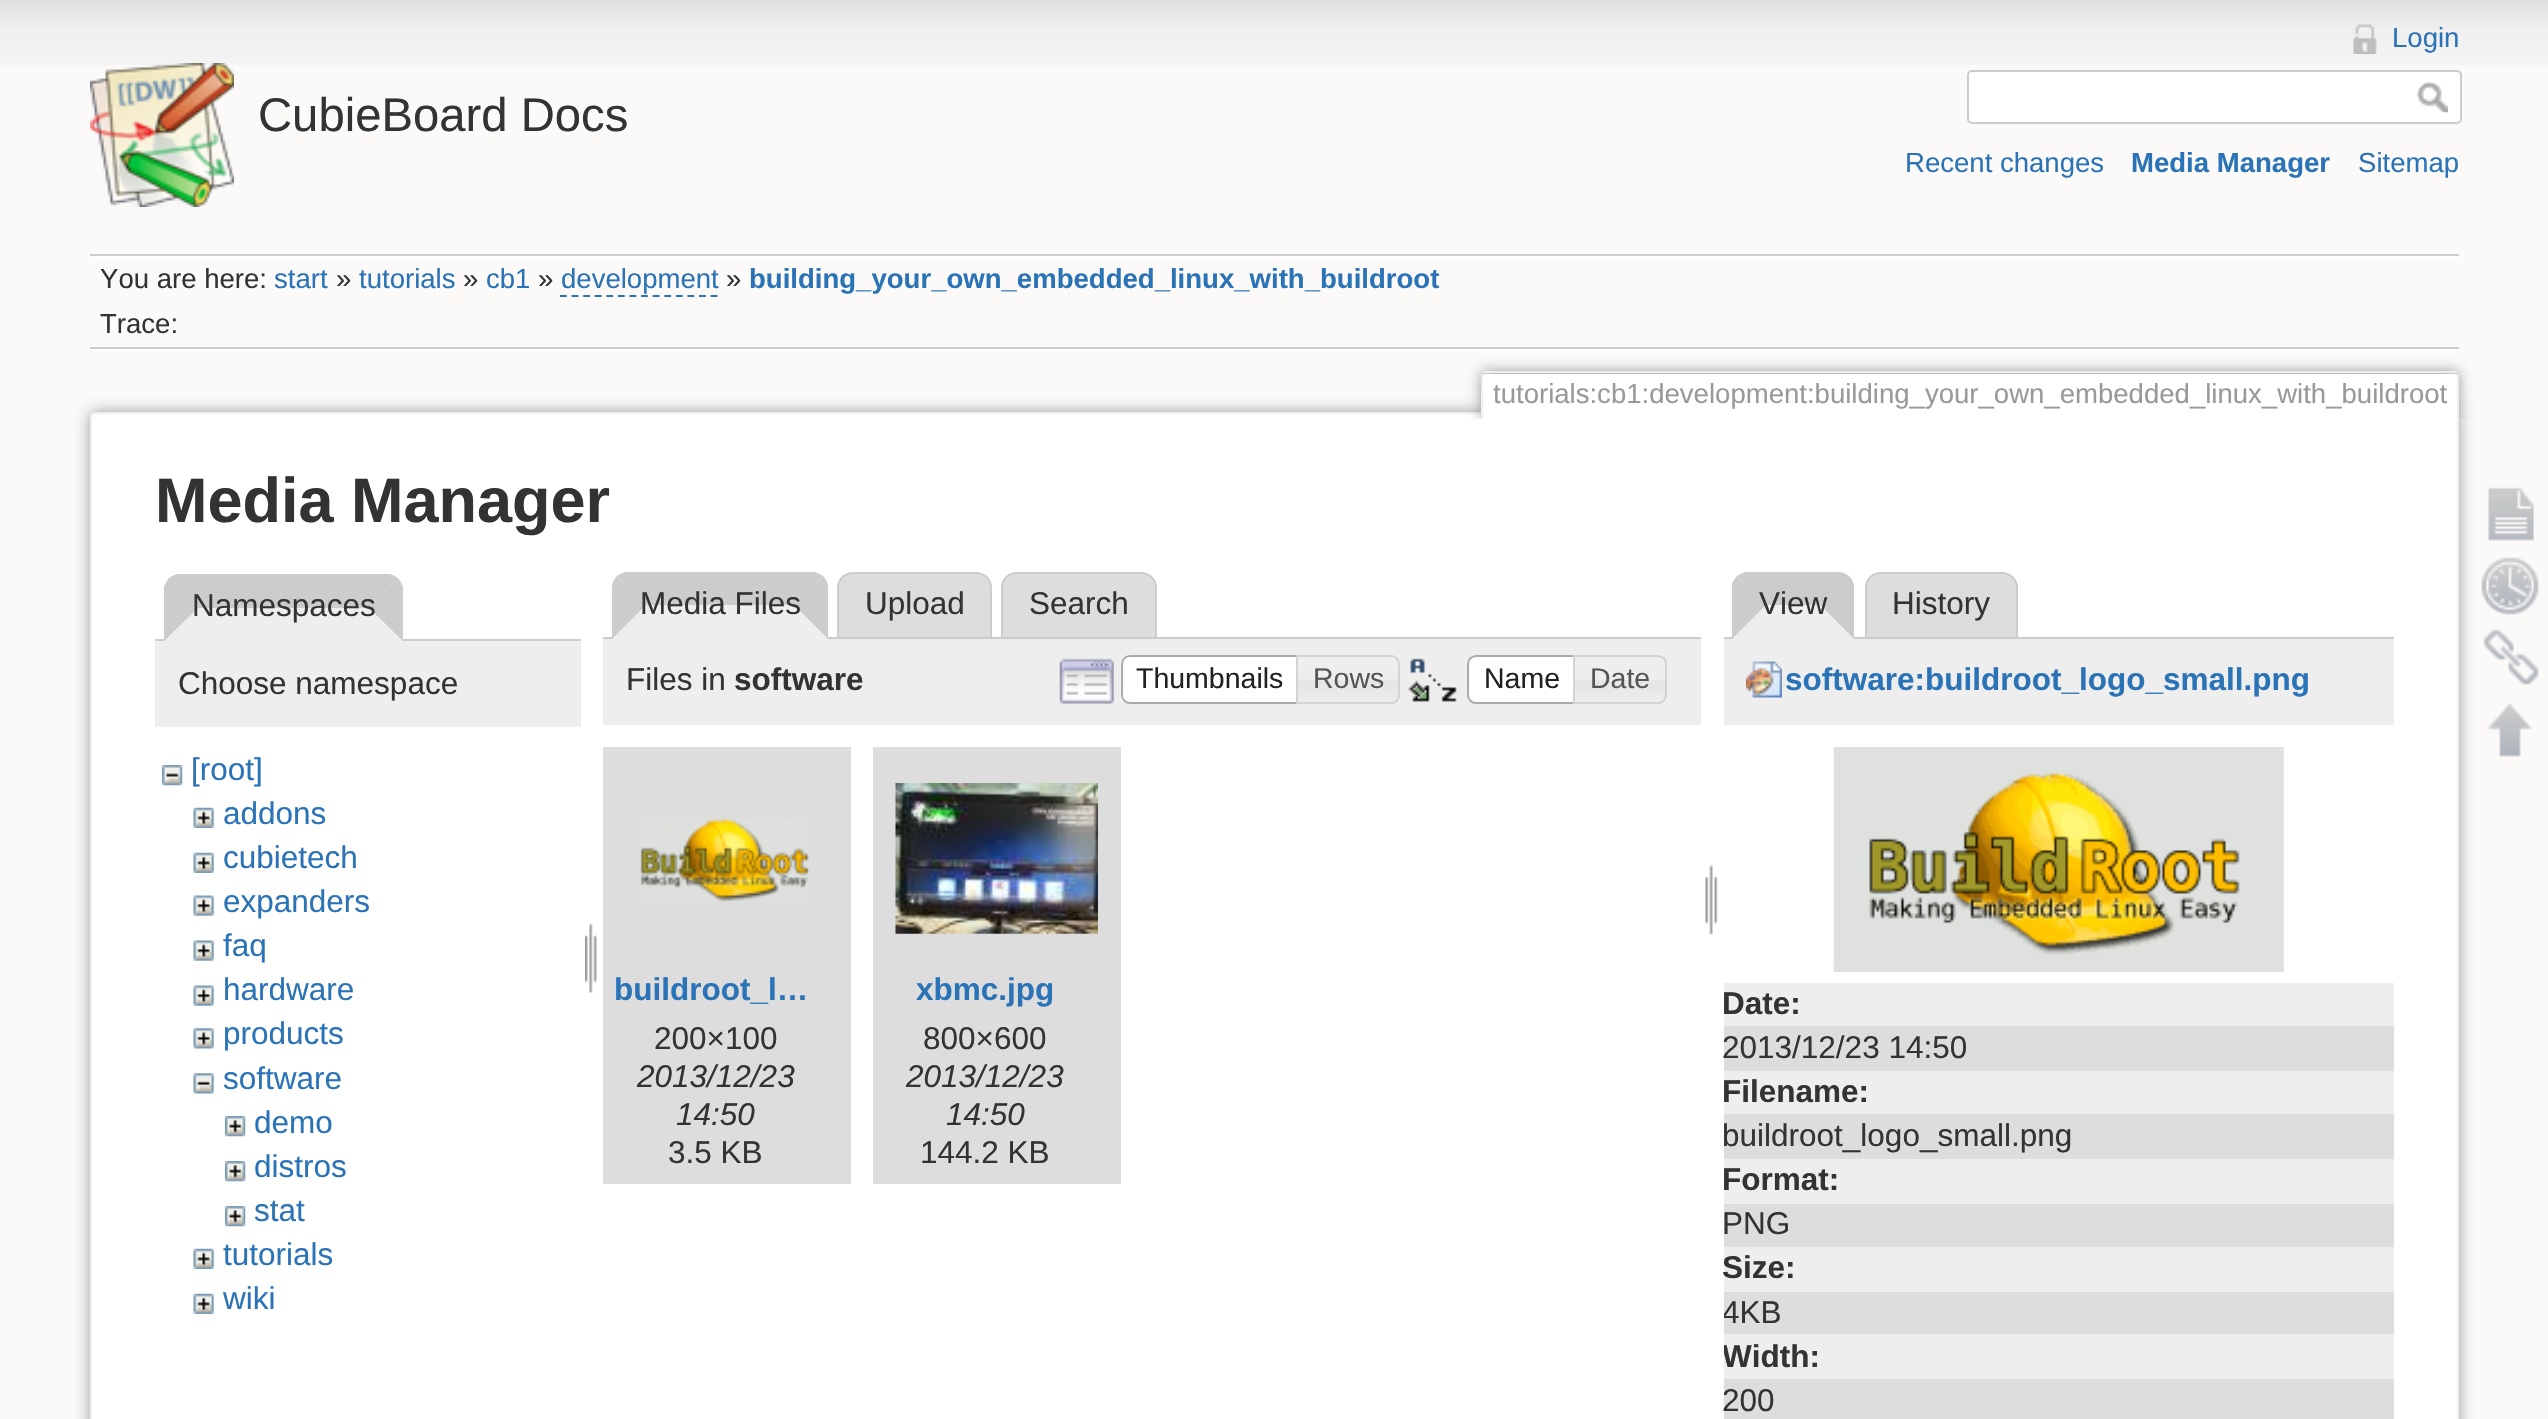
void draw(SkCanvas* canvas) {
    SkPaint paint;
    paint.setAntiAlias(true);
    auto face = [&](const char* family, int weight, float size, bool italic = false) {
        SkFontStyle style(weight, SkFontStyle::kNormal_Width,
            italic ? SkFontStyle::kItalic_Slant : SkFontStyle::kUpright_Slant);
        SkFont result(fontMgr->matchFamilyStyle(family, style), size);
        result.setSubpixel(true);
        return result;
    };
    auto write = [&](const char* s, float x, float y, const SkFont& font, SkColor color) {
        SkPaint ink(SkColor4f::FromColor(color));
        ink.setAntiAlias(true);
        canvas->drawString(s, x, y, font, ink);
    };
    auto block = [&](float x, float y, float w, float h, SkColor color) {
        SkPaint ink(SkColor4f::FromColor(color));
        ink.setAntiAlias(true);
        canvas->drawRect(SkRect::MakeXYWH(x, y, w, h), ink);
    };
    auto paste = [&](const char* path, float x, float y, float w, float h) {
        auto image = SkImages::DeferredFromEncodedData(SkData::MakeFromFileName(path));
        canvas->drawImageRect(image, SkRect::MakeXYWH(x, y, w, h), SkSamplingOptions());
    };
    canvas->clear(SkColorSetRGB(251, 250, 249));
    paste("pic1.png", 0, 0, 2548, 65);
    paste("pic2.png", 90, 63, 144, 144);
    auto kFont1 = face("Liberation Sans", 400, 47.25f);
    write("CubieBoard Docs", 258, 131, kFont1, SkColorSetRGB(51, 51, 51));
    paste("pic3.png", 2353, 24, 24, 30);
    auto kFont2 = face("Liberation Sans", 400, 27.55f);
    write("Login", 2392, 47, kFont2, SkColorSetRGB(43, 115, 183));
    paint.setColor(SK_ColorWHITE);
    canvas->drawRoundRect(SkRect::MakeXYWH(1968, 71, 493, 52), 4, 4, paint);
    paint.setStyle(SkPaint::kStroke_Style);
    paint.setStrokeWidth(2);
    paint.setColor(SkColorSetRGB(204, 204, 204));
    canvas->drawRoundRect(SkRect::MakeXYWH(1968, 71, 493, 52), 4, 4, paint);
    paste("pic4.png", 2416, 81, 32, 32);
    write("Recent changes", 1905, 172, kFont2, SkColorSetRGB(43, 115, 183));
    auto kFont3 = face("Liberation Sans", 700, 27.55f);
    write("Media Manager", 2131, 172, kFont3, SkColorSetRGB(43, 115, 183));
    write("Sitemap", 2358, 172, kFont2, SkColorSetRGB(43, 115, 183));
    block(90, 254, 2369, 2, SkColorSetRGB(204, 204, 204));
    block(90, 349, 2369, 2, SK_ColorWHITE);
    block(90, 257, 2369, 2, SK_ColorWHITE);
    write("You are here:", 100, 288, kFont2, SkColorSetRGB(51, 51, 51));
    write("start", 274, 288, kFont2, SkColorSetRGB(43, 115, 183));
    write("»", 336, 288, kFont2, SkColorSetRGB(51, 51, 51));
    write("tutorials", 359, 288, kFont2, SkColorSetRGB(43, 115, 183));
    write("»", 463, 288, kFont2, SkColorSetRGB(51, 51, 51));
    write("cb1", 486, 288, kFont2, SkColorSetRGB(43, 115, 183));
    write("»", 538, 288, kFont2, SkColorSetRGB(51, 51, 51));
    write("development", 561, 288, kFont2, SkColorSetRGB(43, 115, 183));
    paint.setStrokeWidth(2.2f);
    paint.setColor(SkColorSetRGB(43, 115, 183));
    paint.setPathEffect(SkDashPathEffect::Make({{6.75f, 4.84f}}, 0));
    canvas->drawPath(SkPathBuilder().moveTo(560, 296).lineTo(718, 296).detach(), paint);
    paint.setPathEffect(nullptr);
    write("»", 726, 288, kFont2, SkColorSetRGB(51, 51, 51));
    write("building_your_own_embedded_linux_with_buildroot", 749, 288, kFont3, SkColorSetRGB(43, 115, 183));
    block(90, 347, 2369, 2, SkColorSetRGB(204, 204, 204));
    write("Trace:", 100, 333, kFont2, SkColorSetRGB(51, 51, 51));
    paint.setStyle(SkPaint::kFill_Style);
    paint.setColor(SkColorSetRGB(153, 153, 153));
    paint.setMaskFilter(SkMaskFilter::MakeBlur(kNormal_SkBlurStyle, 8));
    canvas->drawRoundRect(SkRect::MakeXYWH(90, 412, 2369, 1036), 5, 5, paint);
    paint.setMaskFilter(nullptr);
    paint.setColor(SK_ColorWHITE);
    canvas->drawRoundRect(SkRect::MakeXYWH(91, 413, 2367, 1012), 4, 4, paint);
    paint.setStyle(SkPaint::kStroke_Style);
    paint.setStrokeWidth(2);
    paint.setColor(SkColorSetRGB(238, 238, 238));
    canvas->drawRoundRect(SkRect::MakeXYWH(91, 413, 2367, 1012), 4, 4, paint);
    canvas->save();
    canvas->clipRect(SkRect::MakeXYWH(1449, 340, 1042, 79));
    paint.setStyle(SkPaint::kFill_Style);
    paint.setColor(SkColorSetRGB(153, 153, 153));
    paint.setMaskFilter(SkMaskFilter::MakeBlur(kNormal_SkBlurStyle, 7));
    canvas->drawRoundRect(SkRect::MakeXYWH(1481, 371, 978, 48), 5, 5, paint);
    paint.setMaskFilter(nullptr);
    canvas->restore();
    paint.setColor(SK_ColorWHITE);
    canvas->drawPath(SkPathBuilder().moveTo(1485, 374).lineTo(2455, 374).cubicTo(2456, 374, 2457, 375, 2457, 376).lineTo(2457, 419).lineTo(1483, 419).lineTo(1483, 376).cubicTo(1483, 375, 1484, 374, 1485, 374).close().detach(), paint);
    block(1483, 371, 974, 2, SkColorSetRGB(238, 238, 238));
    block(2457, 374, 2, 45, SkColorSetRGB(238, 238, 238));
    block(1481, 374, 2, 45, SkColorSetRGB(238, 238, 238));
    write("tutorials:cb1:development:building_your_own_embedded_linux_with_buildroot", 1493, 403, kFont2, SkColorSetRGB(153, 153, 153));
    auto kFont4 = face("Liberation Sans", 700, 63);
    write("Media Manager", 155, 522, kFont4, SkColorSetRGB(51, 51, 51));
    block(155, 639, 426, 2, SkColorSetRGB(204, 204, 204));
    paint.setColor(SkColorSetRGB(238, 238, 238));
    canvas->drawPath(SkPathBuilder().moveTo(180, 574).lineTo(387, 574).cubicTo(396, 574, 403, 581, 403, 590).lineTo(403, 641).lineTo(164, 641).lineTo(164, 590).cubicTo(164, 581, 171, 574, 180, 574).close().detach(), paint);
    paint.setColor(SkColorSetRGB(204, 204, 204));
    canvas->drawPath(SkPathBuilder().moveTo(180, 574).cubicTo(176, 574, 172, 576, 169, 578).lineTo(198, 608).lineTo(369, 608).lineTo(398, 578).cubicTo(395, 576, 391, 574, 387, 574).close().detach(), paint);
    canvas->drawPath(SkPathBuilder().moveTo(403, 641).lineTo(369, 608).lineTo(398, 578).cubicTo(400, 581, 402, 584, 403, 587).close().detach(), paint);
    paint.setColor(SkColorSetRGB(238, 238, 238));
    canvas->drawPath(SkPathBuilder().moveTo(402, 641).lineTo(369, 608).lineTo(198, 608).lineTo(164, 641).close().detach(), paint);
    paint.setColor(SkColorSetRGB(204, 204, 204));
    canvas->drawPath(SkPathBuilder().moveTo(164, 587).cubicTo(165, 584, 167, 581, 169, 578).lineTo(198, 608).lineTo(164, 641).close().detach(), paint);
    auto kFont5 = face("Liberation Sans", 400, 31.5f);
    write("Namespaces", 192, 616, kFont5, SkColorSetRGB(51, 51, 51));
    block(155, 641, 426, 86, SkColorSetRGB(238, 238, 238));
    write("Choose namespace", 178, 694, kFont5, SkColorSetRGB(51, 51, 51));
    paste("pic5.png", 162, 765, 21, 21);
    write("[root]", 191, 780, kFont5, SkColorSetRGB(43, 115, 183));
    paste("pic6.png", 193, 807, 21, 21);
    write("addons", 223, 824, kFont5, SkColorSetRGB(43, 115, 183));
    paste("pic6.png", 193, 852, 21, 21);
    write("cubietech", 223, 868, kFont5, SkColorSetRGB(43, 115, 183));
    paste("pic7.png", 193, 895, 21, 21);
    write("expanders", 223, 912, kFont5, SkColorSetRGB(43, 115, 183));
    paste("pic7.png", 193, 940, 21, 21);
    write("faq", 223, 956, kFont5, SkColorSetRGB(43, 115, 183));
    paste("pic7.png", 193, 985, 21, 21);
    write("hardware", 223, 1000, kFont5, SkColorSetRGB(43, 115, 183));
    paste("pic8.png", 193, 1028, 21, 21);
    write("products", 223, 1044, kFont5, SkColorSetRGB(43, 115, 183));
    paste("pic9.png", 193, 1073, 21, 21);
    write("software", 223, 1089, kFont5, SkColorSetRGB(43, 115, 183));
    paste("pic10.png", 225, 1116, 21, 21);
    write("demo", 254, 1133, kFont5, SkColorSetRGB(43, 115, 183));
    paste("pic10.png", 225, 1161, 21, 21);
    write("distros", 254, 1177, kFont5, SkColorSetRGB(43, 115, 183));
    paste("pic10.png", 225, 1206, 21, 21);
    write("stat", 254, 1221, kFont5, SkColorSetRGB(43, 115, 183));
    paste("pic6.png", 193, 1248, 21, 21);
    write("tutorials", 223, 1265, kFont5, SkColorSetRGB(43, 115, 183));
    paste("pic6.png", 193, 1293, 21, 21);
    write("wiki", 223, 1309, kFont5, SkColorSetRGB(43, 115, 183));
    paste("pic11.png", 585, 922, 12, 71);
    paint.setColor(SkColorSetRGB(221, 221, 221));
    canvas->drawPath(SkPathBuilder().moveTo(853, 573).lineTo(976, 573).cubicTo(984.5f, 573, 991, 579.5f, 991, 588).lineTo(991, 638).lineTo(838, 638).lineTo(838, 588).cubicTo(838, 579.5f, 844.5f, 573, 853, 573).close().detach(), paint);
    paint.setStyle(SkPaint::kStroke_Style);
    paint.setColor(SkColorSetRGB(204, 204, 204));
    canvas->drawPath(SkPathBuilder().moveTo(853, 573).lineTo(976, 573).cubicTo(984.5f, 573, 991, 579.5f, 991, 588).lineTo(991, 638).lineTo(838, 638).lineTo(838, 588).cubicTo(838, 579.5f, 844.5f, 573, 853, 573).close().detach(), paint);
    paint.setStyle(SkPaint::kFill_Style);
    paint.setColor(SkColorSetRGB(221, 221, 221));
    canvas->drawPath(SkPathBuilder().moveTo(1017, 573).lineTo(1141, 573).cubicTo(1149.5f, 573, 1156, 579.5f, 1156, 588).lineTo(1156, 638).lineTo(1002, 638).lineTo(1002, 588).cubicTo(1002, 579.5f, 1008.5f, 573, 1017, 573).close().detach(), paint);
    paint.setStyle(SkPaint::kStroke_Style);
    paint.setColor(SkColorSetRGB(204, 204, 204));
    canvas->drawPath(SkPathBuilder().moveTo(1017, 573).lineTo(1141, 573).cubicTo(1149.5f, 573, 1156, 579.5f, 1156, 588).lineTo(1156, 638).lineTo(1002, 638).lineTo(1002, 588).cubicTo(1002, 579.5f, 1008.5f, 573, 1017, 573).close().detach(), paint);
    block(603, 637, 1098, 2, SkColorSetRGB(204, 204, 204));
    paint.setStyle(SkPaint::kFill_Style);
    paint.setColor(SkColorSetRGB(238, 238, 238));
    canvas->drawPath(SkPathBuilder().moveTo(628, 572).lineTo(812, 572).cubicTo(821, 572, 828, 579, 828, 588).lineTo(828, 639).lineTo(612, 639).lineTo(612, 588).cubicTo(612, 579, 619, 572, 628, 572).close().detach(), paint);
    paint.setColor(SkColorSetRGB(204, 204, 204));
    canvas->drawPath(SkPathBuilder().moveTo(628, 572).cubicTo(624, 572, 620, 574, 617, 576).lineTo(646, 605).lineTo(794, 605).lineTo(823, 576).cubicTo(820, 574, 816, 572, 812, 572).close().detach(), paint);
    canvas->drawPath(SkPathBuilder().moveTo(823, 576).cubicTo(826, 579, 828, 583, 828, 587).lineTo(828, 639).lineTo(794, 605).close().detach(), paint);
    paint.setColor(SkColorSetRGB(238, 238, 238));
    canvas->drawPath(SkPathBuilder().moveTo(828, 639).lineTo(794, 605).lineTo(646, 605).lineTo(612, 639).close().detach(), paint);
    paint.setColor(SkColorSetRGB(204, 204, 204));
    canvas->drawPath(SkPathBuilder().moveTo(612, 639).lineTo(646, 605).lineTo(617, 576).cubicTo(614, 579, 612, 583, 612, 587).close().detach(), paint);
    write("Media Files", 640, 614, kFont5, SkColorSetRGB(51, 51, 51));
    write("Upload", 865, 614, kFont5, SkColorSetRGB(51, 51, 51));
    write("Search", 1029, 614, kFont5, SkColorSetRGB(51, 51, 51));
    block(603, 639, 1098, 86, SkColorSetRGB(238, 238, 238));
    write("Files in", 626, 690, kFont5, SkColorSetRGB(51, 51, 51));
    auto kFont6 = face("Liberation Sans", 700, 31.5f);
    write("software", 734, 690, kFont6, SkColorSetRGB(51, 51, 51));
    paste("pic12.png", 1059, 658, 55, 46);
    paint.setColor(SK_ColorWHITE);
    canvas->drawPath(SkPathBuilder().moveTo(1130, 655).lineTo(1298, 655).lineTo(1298, 704).lineTo(1130, 704).cubicTo(1125, 704, 1121, 700, 1121, 695).lineTo(1121, 664).cubicTo(1121, 659, 1125, 655, 1130, 655).close().detach(), paint);
    paste("pic13.png", 1120, 655, 8, 49);
    paint.setStyle(SkPaint::kStroke_Style);
    paint.setColor(SkColorSetRGB(170, 170, 170));
    canvas->drawPath(SkPathBuilder().moveTo(1130, 656).lineTo(1297, 656).lineTo(1297, 703).lineTo(1130, 703).cubicTo(1125.5f, 703, 1122, 699.5f, 1122, 695).lineTo(1122, 664).cubicTo(1122, 659.5f, 1125.5f, 656, 1130, 656).close().detach(), paint);
    auto kFont7 = face("Liberation Sans", 400, 28.5f);
    write("Thumbnails", 1136, 688, kFont7, SkColorSetRGB(33, 33, 33));
    paste("pic14.png", 1298, 655, 101, 49);
    paint.setColor(SkColorSetRGB(211, 211, 211));
    canvas->drawPath(SkPathBuilder().moveTo(1297, 656).lineTo(1391, 656).cubicTo(1395.5f, 656, 1399, 659.5f, 1399, 664).lineTo(1399, 695).cubicTo(1399, 699.5f, 1395.5f, 703, 1391, 703).lineTo(1297, 703).close().detach(), paint);
    write("Rows", 1313, 688, kFont7, SkColorSetRGB(85, 85, 85));
    paste("pic15.png", 1408, 658, 49, 44);
    paint.setStyle(SkPaint::kFill_Style);
    paint.setColor(SK_ColorWHITE);
    canvas->drawPath(SkPathBuilder().moveTo(1476, 655).lineTo(1575, 655).lineTo(1575, 704).lineTo(1476, 704).cubicTo(1471, 704, 1467, 700, 1467, 695).lineTo(1467, 664).cubicTo(1467, 659, 1471, 655, 1476, 655).close().detach(), paint);
    paste("pic16.png", 1467, 655, 7, 49);
    paint.setStyle(SkPaint::kStroke_Style);
    paint.setColor(SkColorSetRGB(170, 170, 170));
    canvas->drawPath(SkPathBuilder().moveTo(1476, 656).lineTo(1574, 656).lineTo(1574, 703).lineTo(1476, 703).cubicTo(1471.5f, 703, 1468, 699.5f, 1468, 695).lineTo(1468, 664).cubicTo(1468, 659.5f, 1471.5f, 656, 1476, 656).close().detach(), paint);
    write("Name", 1484, 688, kFont7, SkColorSetRGB(33, 33, 33));
    paste("pic17.png", 1572, 655, 95, 49);
    paint.setColor(SkColorSetRGB(211, 211, 211));
    canvas->drawPath(SkPathBuilder().moveTo(1574, 656).lineTo(1658, 656).cubicTo(1662.5f, 656, 1666, 659.5f, 1666, 664).lineTo(1666, 695).cubicTo(1666, 699.5f, 1662.5f, 703, 1658, 703).lineTo(1574, 703).close().detach(), paint);
    write("Date", 1590, 688, kFont7, SkColorSetRGB(85, 85, 85));
    paste("pic18.png", 1705, 864, 13, 71);
    block(603, 747, 248, 437, SkColorSetRGB(221, 221, 221));
    paste("pic19.png", 640, 818, 169, 84);
    write("buildroot_l…", 614, 1000, kFont6, SkColorSetRGB(43, 115, 183));
    write("200×100", 654, 1049, kFont5, SkColorSetRGB(51, 51, 51));
    auto kFont8 = face("Liberation Sans", 400, 31.5f, true);
    write("2013/12/23", 637, 1087, kFont8, SkColorSetRGB(51, 51, 51));
    write("14:50", 676, 1125, kFont8, SkColorSetRGB(51, 51, 51));
    write("3.5 KB", 668, 1163, kFont5, SkColorSetRGB(51, 51, 51));
    block(873, 747, 248, 437, SkColorSetRGB(221, 221, 221));
    paste("pic20.png", 895, 783, 203, 151);
    write("xbmc.jpg", 916, 1000, kFont6, SkColorSetRGB(43, 115, 183));
    write("800×600", 923, 1049, kFont5, SkColorSetRGB(51, 51, 51));
    write("2013/12/23", 906, 1087, kFont8, SkColorSetRGB(51, 51, 51));
    write("14:50", 946, 1125, kFont8, SkColorSetRGB(51, 51, 51));
    write("144.2 KB", 920, 1163, kFont5, SkColorSetRGB(51, 51, 51));
    paint.setStyle(SkPaint::kFill_Style);
    paint.setColor(SkColorSetRGB(221, 221, 221));
    canvas->drawPath(SkPathBuilder().moveTo(1881, 573).lineTo(2002, 573).cubicTo(2010.5f, 573, 2017, 579.5f, 2017, 588).lineTo(2017, 638).lineTo(1866, 638).lineTo(1866, 588).cubicTo(1866, 579.5f, 1872.5f, 573, 1881, 573).close().detach(), paint);
    paint.setStyle(SkPaint::kStroke_Style);
    paint.setColor(SkColorSetRGB(204, 204, 204));
    canvas->drawPath(SkPathBuilder().moveTo(1881, 573).lineTo(2002, 573).cubicTo(2010.5f, 573, 2017, 579.5f, 2017, 588).lineTo(2017, 638).lineTo(1866, 638).lineTo(1866, 588).cubicTo(1866, 579.5f, 1872.5f, 573, 1881, 573).close().detach(), paint);
    block(1724, 637, 670, 2, SkColorSetRGB(204, 204, 204));
    paint.setStyle(SkPaint::kFill_Style);
    paint.setColor(SkColorSetRGB(238, 238, 238));
    canvas->drawPath(SkPathBuilder().moveTo(1749, 572).lineTo(1838, 572).cubicTo(1847, 572, 1854, 579, 1854, 588).lineTo(1854, 639).lineTo(1733, 639).lineTo(1733, 588).cubicTo(1733, 579, 1740, 572, 1749, 572).close().detach(), paint);
    paint.setColor(SkColorSetRGB(204, 204, 204));
    canvas->drawPath(SkPathBuilder().moveTo(1748, 572).cubicTo(1744, 572, 1740, 574, 1737, 576).lineTo(1766, 605).lineTo(1820, 605).lineTo(1849, 576).cubicTo(1846, 574, 1842, 572, 1838, 572).close().detach(), paint);
    canvas->drawPath(SkPathBuilder().moveTo(1849, 576).cubicTo(1852, 579, 1854, 583, 1854, 587).lineTo(1854, 639).lineTo(1820, 605).close().detach(), paint);
    paint.setColor(SkColorSetRGB(238, 238, 238));
    canvas->drawPath(SkPathBuilder().moveTo(1854, 639).lineTo(1820, 605).lineTo(1766, 605).lineTo(1732, 639).close().detach(), paint);
    paint.setColor(SkColorSetRGB(204, 204, 204));
    canvas->drawPath(SkPathBuilder().moveTo(1732, 639).lineTo(1766, 605).lineTo(1737, 576).cubicTo(1735, 578, 1733, 581, 1732, 584).close().detach(), paint);
    write("View", 1759, 614, kFont5, SkColorSetRGB(51, 51, 51));
    write("History", 1892, 614, kFont5, SkColorSetRGB(51, 51, 51));
    block(1724, 639, 670, 86, SkColorSetRGB(238, 238, 238));
    paste("pic21.png", 1746, 661, 36, 37);
    write("software:buildroot_logo_small.png", 1785, 690, kFont6, SkColorSetRGB(43, 115, 183));
    paste("pic22.png", 1833, 747, 451, 225);
    block(1724, 983, 670, 43, SkColorSetRGB(238, 238, 238));
    write("Date:", 1722, 1014, kFont6, SkColorSetRGB(51, 51, 51));
    block(1724, 1026, 670, 45, SkColorSetRGB(221, 221, 221));
    write("2013/12/23 14:50", 1722, 1058, kFont5, SkColorSetRGB(51, 51, 51));
    block(1724, 1071, 670, 43, SkColorSetRGB(238, 238, 238));
    write("Filename:", 1722, 1102, kFont6, SkColorSetRGB(51, 51, 51));
    block(1724, 1114, 670, 45, SkColorSetRGB(221, 221, 221));
    write("buildroot_logo_small.png", 1722, 1146, kFont5, SkColorSetRGB(51, 51, 51));
    block(1724, 1159, 670, 45, SkColorSetRGB(238, 238, 238));
    write("Format:", 1722, 1190, kFont6, SkColorSetRGB(51, 51, 51));
    block(1724, 1204, 670, 43, SkColorSetRGB(221, 221, 221));
    write("PNG", 1722, 1234, kFont5, SkColorSetRGB(51, 51, 51));
    block(1724, 1247, 670, 45, SkColorSetRGB(238, 238, 238));
    write("Size:", 1722, 1278, kFont6, SkColorSetRGB(51, 51, 51));
    block(1724, 1292, 670, 42, SkColorSetRGB(221, 221, 221));
    canvas->save();
    canvas->clipRect(SkRect::MakeXYWH(1724, 747, 670, 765));
    write("4KB", 1722, 1323, kFont5, SkColorSetRGB(51, 51, 51));
    canvas->restore();
    block(1724, 1334, 670, 45, SkColorSetRGB(238, 238, 238));
    canvas->save();
    canvas->clipRect(SkRect::MakeXYWH(1724, 747, 670, 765));
    write("Width:", 1722, 1367, kFont6, SkColorSetRGB(51, 51, 51));
    canvas->restore();
    block(1724, 1379, 670, 40, SkColorSetRGB(221, 221, 221));
    write("200", 1722, 1411, kFont5, SkColorSetRGB(51, 51, 51));
    paste("pic23.png", 2488, 487, 46, 54);
    paste("pic24.png", 2481, 557, 58, 58);
    paste("pic25.png", 2483, 629, 56, 56);
    paste("pic26.png", 2488, 703, 44, 54);
}
